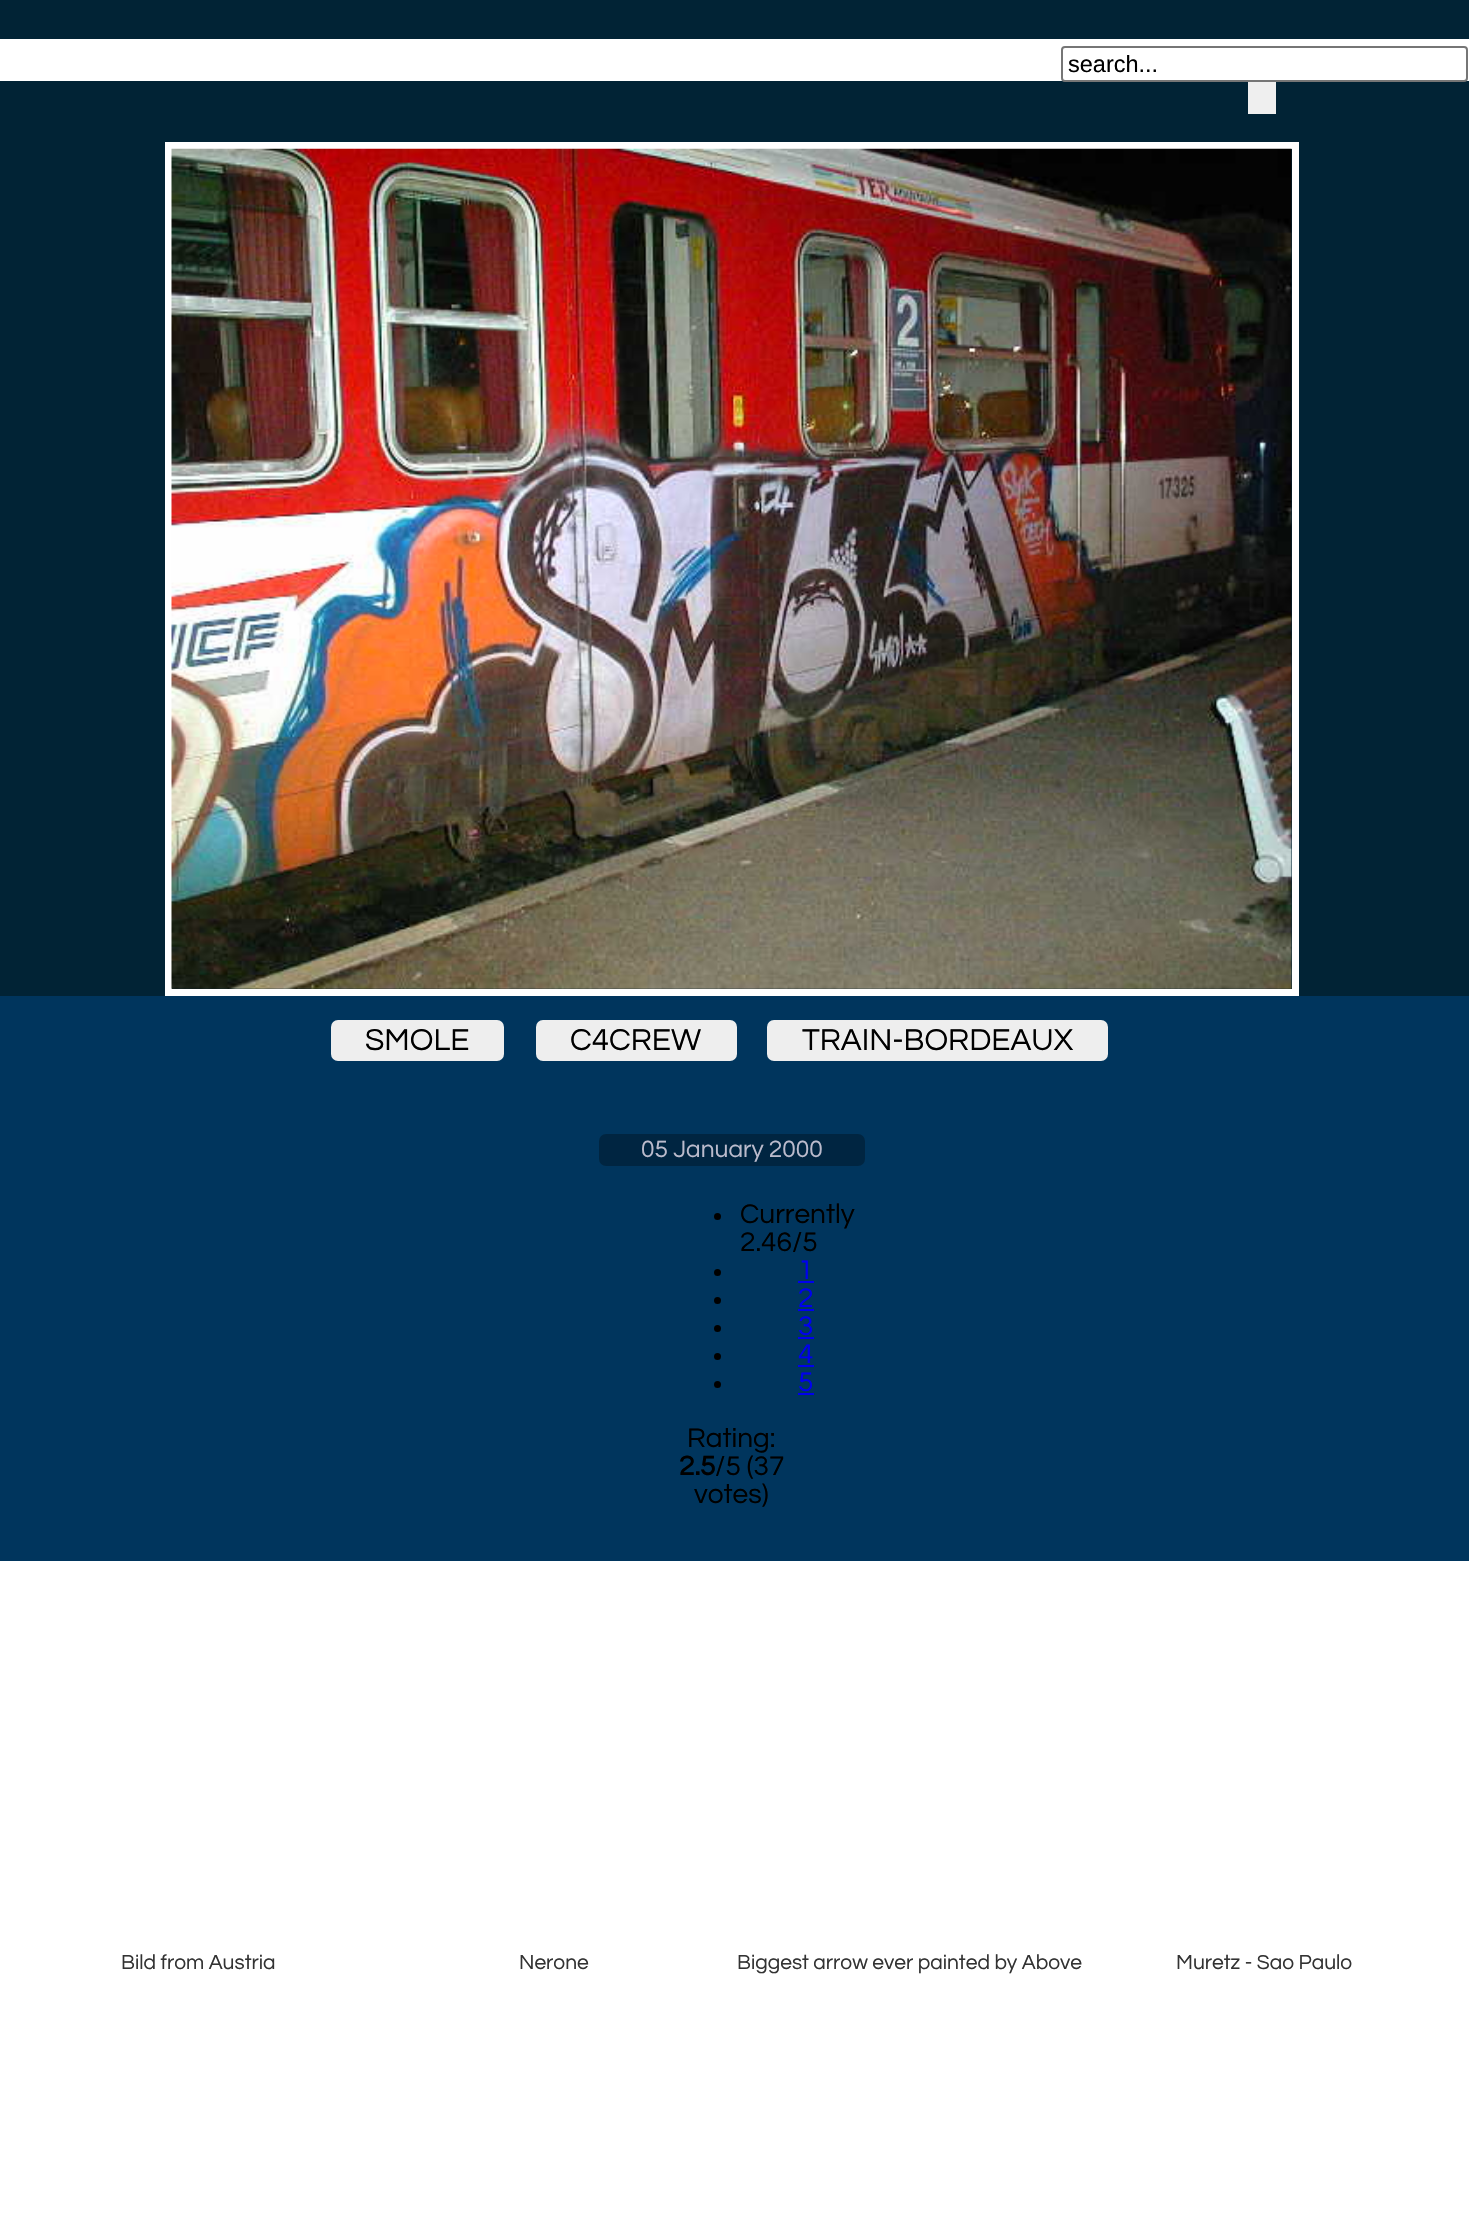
void draw(SkCanvas* canvas) {
    SkPaint paint;
    paint.setAntiAlias(true);
    auto face = [&](const char* family, int weight, float size, bool italic = false) {
        SkFontStyle style(weight, SkFontStyle::kNormal_Width,
            italic ? SkFontStyle::kItalic_Slant : SkFontStyle::kUpright_Slant);
        SkFont result(fontMgr->matchFamilyStyle(family, style), size);
        result.setSubpixel(true);
        return result;
    };
    auto write = [&](const char* s, float x, float y, const SkFont& font, SkColor color) {
        SkPaint ink(SkColor4f::FromColor(color));
        ink.setAntiAlias(true);
        canvas->drawString(s, x, y, font, ink);
    };
    auto block = [&](float x, float y, float w, float h, SkColor color) {
        SkPaint ink(SkColor4f::FromColor(color));
        ink.setAntiAlias(true);
        canvas->drawRect(SkRect::MakeXYWH(x, y, w, h), ink);
    };
    auto card = [&](float x, float y, float w, float h, float radius, SkColor color) {
        SkPaint ink(SkColor4f::FromColor(color));
        ink.setAntiAlias(true);
        canvas->drawRoundRect(SkRect::MakeXYWH(x, y, w, h), radius, radius, ink);
    };
    auto paste = [&](const char* path, float x, float y, float w, float h) {
        auto image = SkImages::DeferredFromEncodedData(SkData::MakeFromFileName(path));
        canvas->drawImageRect(image, SkRect::MakeXYWH(x, y, w, h), SkSamplingOptions());
    };
    canvas->clear(SkColorSetRGB(1, 35, 53));
    block(0, 39, 1469, 42, SK_ColorWHITE);
    paint.setColor(SK_ColorWHITE);
    canvas->drawRoundRect(SkRect::MakeXYWH(1062, 47, 405, 34), 3, 3, paint);
    paint.setStyle(SkPaint::kStroke_Style);
    paint.setStrokeWidth(2);
    paint.setColor(SkColorSetRGB(118, 118, 118));
    canvas->drawRoundRect(SkRect::MakeXYWH(1062, 47, 405, 34), 3, 3, paint);
    auto kFont1 = face("Liberation Sans", 400, 23.5f);
    write("search...", 1068, 72, kFont1, SK_ColorBLACK);
    block(1248, 82, 28, 32, SkColorSetRGB(239, 239, 239));
    paint.setStrokeWidth(7);
    paint.setColor(SK_ColorWHITE);
    canvas->drawRect(SkRect::MakeXYWH(168.5f, 145.5f, 1127, 847), paint);
    paste("pic1.png", 171, 148, 1121, 841);
    block(0, 996, 1469, 565, SkColorSetRGB(0, 53, 93));
    card(331, 1020, 173, 41, 7, SkColorSetRGB(238, 238, 238));
    auto kFont2 = face("Questrial", 400, 31.5f);
    write("SMOLE", 365, 1050, kFont2, SK_ColorBLACK);
    card(536, 1020, 201, 41, 7, SkColorSetRGB(238, 238, 238));
    write("C4CREW", 570, 1050, kFont2, SK_ColorBLACK);
    card(767, 1020, 341, 41, 7, SkColorSetRGB(238, 238, 238));
    write("TRAIN-BORDEAUX", 802, 1050, kFont2, SK_ColorBLACK);
    card(599, 1134, 266, 32, 7, SkColorSetRGB(0, 37, 65));
    auto kFont3 = face("Questrial", 400, 24.5f);
    write("05 January 2000", 641, 1157, kFont3, SkColorSetRGB(187, 187, 204));
    paint.setStyle(SkPaint::kFill_Style);
    paint.setColor(SK_ColorBLACK);
    canvas->drawCircle(717.5f, 1216.5f, 3.5f, paint);
    auto kFont4 = face("Questrial", 400, 28);
    write("Currently", 740, 1223, kFont4, SK_ColorBLACK);
    write("2.46/5", 740, 1251, kFont4, SK_ColorBLACK);
    canvas->drawCircle(717.5f, 1272.5f, 3.5f, paint);
    write("1", 798, 1279, kFont4, SkColorSetRGB(0, 0, 238));
    block(798, 1281, 16, 2, SkColorSetRGB(0, 0, 238));
    canvas->drawCircle(717.5f, 1300.5f, 3.5f, paint);
    write("2", 798, 1307, kFont4, SkColorSetRGB(0, 0, 238));
    block(798, 1309, 16, 2, SkColorSetRGB(0, 0, 238));
    canvas->drawCircle(717.5f, 1328.5f, 3.5f, paint);
    write("3", 798, 1335, kFont4, SkColorSetRGB(0, 0, 238));
    block(798, 1337, 16, 2, SkColorSetRGB(0, 0, 238));
    canvas->drawCircle(717.5f, 1356.5f, 3.5f, paint);
    write("4", 798, 1363, kFont4, SkColorSetRGB(0, 0, 238));
    block(798, 1365, 16, 2, SkColorSetRGB(0, 0, 238));
    canvas->drawCircle(717.5f, 1384.5f, 3.5f, paint);
    write("5", 798, 1391, kFont4, SkColorSetRGB(0, 0, 238));
    block(798, 1393, 16, 2, SkColorSetRGB(0, 0, 238));
    write("Rating:", 687, 1447, kFont4, SK_ColorBLACK);
    auto kFont5 = face("Questrial", 700, 28);
    write("2.5", 679, 1475, kFont5, SK_ColorBLACK);
    write("/5 (37", 715, 1475, kFont4, SK_ColorBLACK);
    write("votes)", 694, 1503, kFont4, SK_ColorBLACK);
    block(0, 1561, 1469, 665, SK_ColorWHITE);
    auto kFont6 = face("Questrial", 400, 21);
    write("Bild from Austria", 121, 1969, kFont6, SkColorSetRGB(51, 51, 51));
    write("Nerone", 519, 1969, kFont6, SkColorSetRGB(51, 51, 51));
    write("Biggest arrow ever painted by Above", 737, 1969, kFont6, SkColorSetRGB(51, 51, 51));
    write("Muretz - Sao Paulo", 1176, 1969, kFont6, SkColorSetRGB(51, 51, 51));
}
